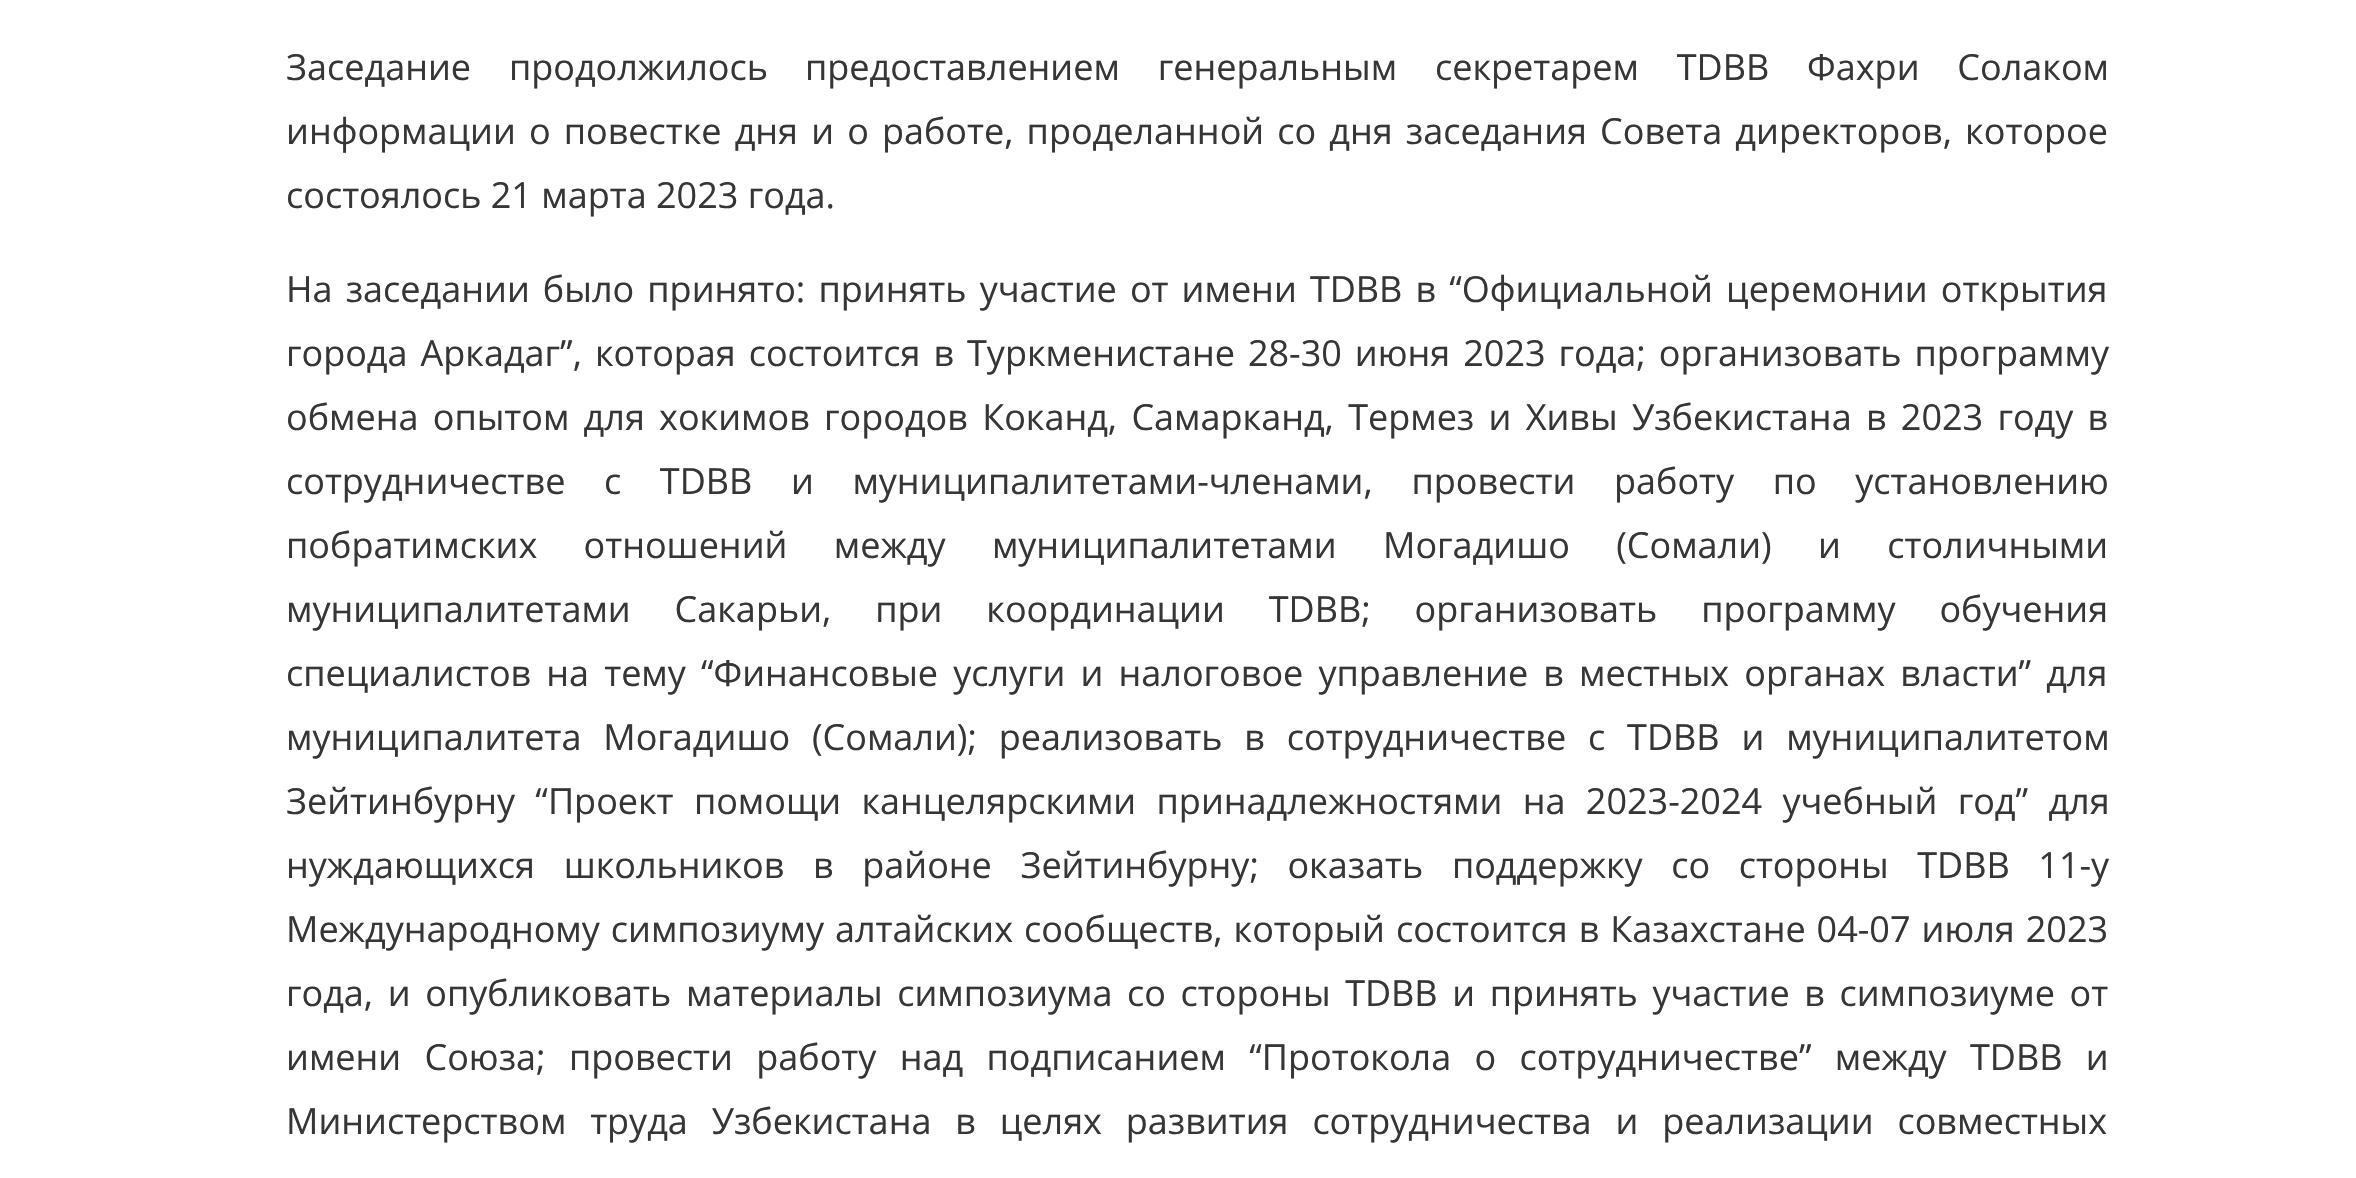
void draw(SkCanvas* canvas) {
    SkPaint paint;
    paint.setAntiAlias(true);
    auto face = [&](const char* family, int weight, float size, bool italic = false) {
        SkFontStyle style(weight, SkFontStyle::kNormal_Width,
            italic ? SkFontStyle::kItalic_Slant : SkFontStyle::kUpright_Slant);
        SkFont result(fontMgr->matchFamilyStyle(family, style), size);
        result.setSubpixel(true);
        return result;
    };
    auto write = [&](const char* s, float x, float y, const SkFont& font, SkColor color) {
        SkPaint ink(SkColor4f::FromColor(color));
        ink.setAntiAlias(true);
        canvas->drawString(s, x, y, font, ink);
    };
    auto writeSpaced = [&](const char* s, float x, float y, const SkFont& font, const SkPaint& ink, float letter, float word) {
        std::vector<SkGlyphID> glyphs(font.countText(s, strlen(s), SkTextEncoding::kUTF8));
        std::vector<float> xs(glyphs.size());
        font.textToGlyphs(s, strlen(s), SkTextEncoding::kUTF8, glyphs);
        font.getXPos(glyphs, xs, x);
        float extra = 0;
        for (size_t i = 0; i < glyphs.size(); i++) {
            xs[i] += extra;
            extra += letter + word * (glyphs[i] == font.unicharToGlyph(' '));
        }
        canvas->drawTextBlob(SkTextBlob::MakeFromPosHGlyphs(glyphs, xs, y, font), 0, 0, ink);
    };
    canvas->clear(SK_ColorWHITE);
    auto kFont1 = face("Open Sans", 400, 36);
    paint.setColor(SkColorSetRGB(54, 54, 54));
    writeSpaced("Заседание продолжилось", 286, 80, kFont1, paint, 0, 28.5f);
    writeSpaced("предоставлением генеральным секретарем TDBB Фахри Солаком", 805, 80, kFont1, paint, 0, 28.5f);
    writeSpaced("информации о повестке дня и о работе, проделанной со дня заседания Совета директоров, которое", 286, 144, kFont1, paint, 0, 3.75f);
    write("состоялось 21 марта 2023 года.", 286, 208, kFont1, SkColorSetRGB(54, 54, 54));
    writeSpaced("На заседании было принято: принять участие от имени TDBB в “Официальной церемонии открытия", 286, 302, kFont1, paint, 0, 3.75f);
    writeSpaced("города Аркадаг”, которая состоится в Туркменистане 28-30 июня 2023 года; организовать программу", 286, 366, kFont1, paint, 0, 3.6f);
    writeSpaced("обмена опытом для хокимов городов Коканд, Самарканд, Термез и Хивы Узбекистана в 2023 году в", 286, 430, kFont1, paint, 0, 4.9f);
    writeSpaced("сотрудничестве с TDBB и муниципалитетами-членами, провести работу по установлению", 286, 494, kFont1, paint, 0, 29.25f);
    writeSpaced("побратимских отношений между муниципалитетами Могадишо (Сомали) и столичными", 286, 558, kFont1, paint, 0, 37);
    writeSpaced("муниципалитетами Сакарьи, при координации TDBB; организовать программу обучения", 286, 622, kFont1, paint, 0, 34.5f);
    writeSpaced("специалистов на тему “Финансовые услуги и налоговое управление в местных органах власти” для", 286, 686, kFont1, paint, 0, 5.75f);
    writeSpaced("муниципалитета Могадишо (Сомали); реализовать в сотрудничестве с TDBB и муниципалитетом", 286, 750, kFont1, paint, 0, 12.5f);
    writeSpaced("Зейтинбурну “Проект помощи канцелярскими принадлежностями на 2023-2024 учебный год” для", 286, 814, kFont1, paint, 0, 11);
    writeSpaced("нуждающихся школьников в районе Зейтинбурну; оказать поддержку со стороны TDBB 11-у", 286, 878, kFont1, paint, 0, 19.25f);
    writeSpaced("Международному симпозиуму алтайских сообществ, который состоится в Казахстане 04-07 июля 2023", 286, 942, kFont1, paint, 0, 1.6f);
    writeSpaced("года, и опубликовать материалы симпозиума со стороны TDBB и принять участие в симпозиуме от", 286, 1006, kFont1, paint, 0, 5.25f);
    writeSpaced("имени Союза; провести работу над подписанием “Протокола о сотрудничестве” между TDBB и", 286, 1070, kFont1, paint, 0, 14);
    writeSpaced("Министерством труда Узбекистана в целях развития сотрудничества и реализации совместных", 286, 1134, kFont1, paint, 0, 14.5f);
}
